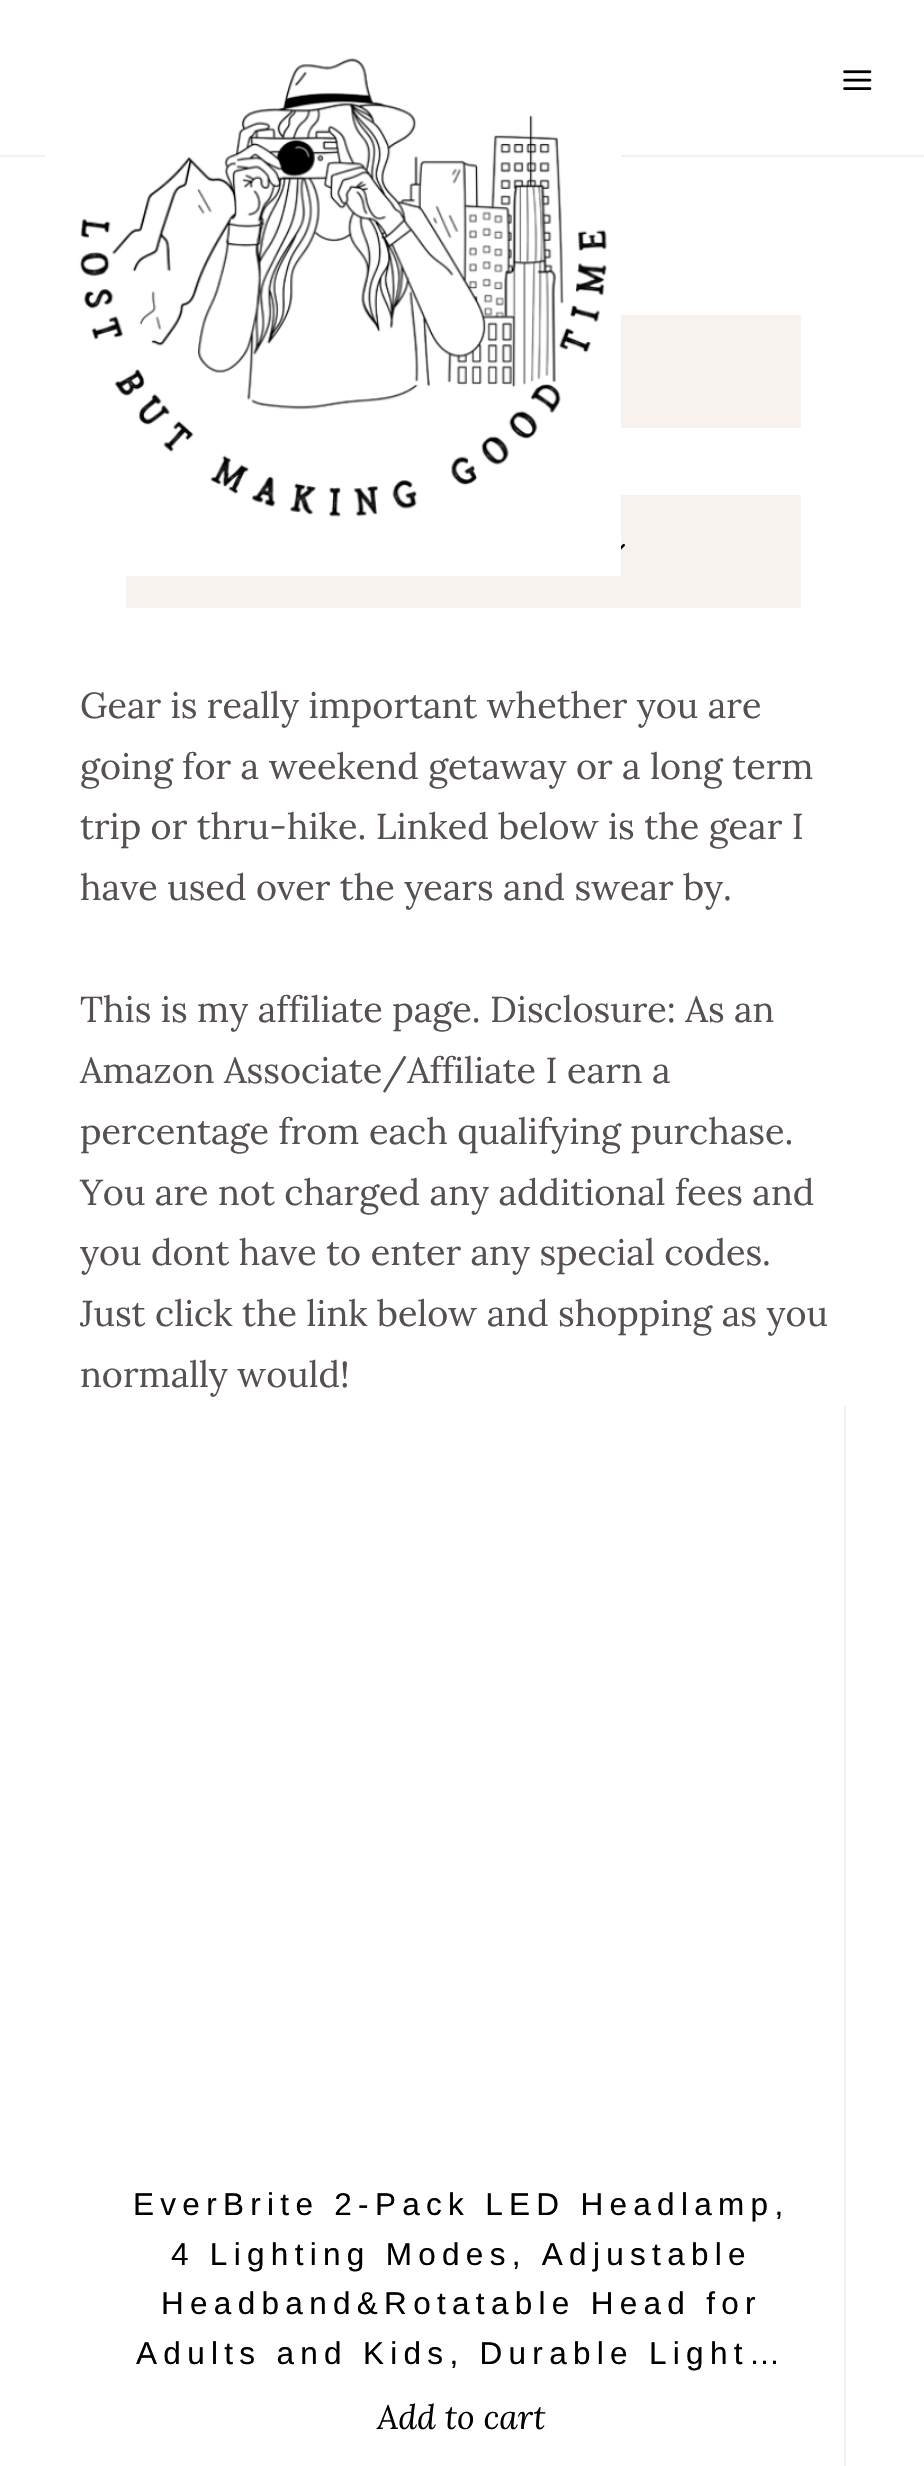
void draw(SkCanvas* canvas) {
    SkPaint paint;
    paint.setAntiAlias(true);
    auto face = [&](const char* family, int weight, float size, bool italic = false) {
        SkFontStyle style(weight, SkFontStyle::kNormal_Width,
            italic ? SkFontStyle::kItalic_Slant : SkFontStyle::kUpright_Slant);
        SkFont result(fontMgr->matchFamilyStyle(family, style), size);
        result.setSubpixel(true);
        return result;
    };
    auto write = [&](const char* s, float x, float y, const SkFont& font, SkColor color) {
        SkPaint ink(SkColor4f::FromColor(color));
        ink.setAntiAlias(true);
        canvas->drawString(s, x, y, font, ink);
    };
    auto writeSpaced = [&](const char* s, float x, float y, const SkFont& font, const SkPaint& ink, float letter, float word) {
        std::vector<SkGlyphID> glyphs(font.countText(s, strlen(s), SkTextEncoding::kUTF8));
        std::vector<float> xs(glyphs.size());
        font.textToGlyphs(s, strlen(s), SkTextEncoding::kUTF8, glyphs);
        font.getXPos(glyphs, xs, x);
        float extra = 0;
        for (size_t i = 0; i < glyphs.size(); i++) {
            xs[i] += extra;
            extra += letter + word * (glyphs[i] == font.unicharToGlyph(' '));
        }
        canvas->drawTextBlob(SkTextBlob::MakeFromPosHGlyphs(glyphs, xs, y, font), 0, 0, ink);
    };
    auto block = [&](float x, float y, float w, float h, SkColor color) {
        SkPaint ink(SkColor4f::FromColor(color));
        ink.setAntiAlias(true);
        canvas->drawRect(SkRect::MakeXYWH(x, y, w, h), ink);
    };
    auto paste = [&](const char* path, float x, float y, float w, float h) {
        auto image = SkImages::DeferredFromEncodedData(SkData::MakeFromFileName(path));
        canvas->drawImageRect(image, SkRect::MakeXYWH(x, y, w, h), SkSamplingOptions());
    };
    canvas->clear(SK_ColorWHITE);
    block(0, 155, 924, 2, SkColorSetRGB(242, 242, 242));
    block(126, 495, 675, 113, SkColorSetRGB(247, 242, 238));
    paste("pic1.png", 45, 58, 576, 518);
    paste("pic2.png", 843, 70, 29, 20);
    block(621, 315, 180, 113, SkColorSetRGB(247, 242, 238));
    paste("pic3.png", 621, 543, 4, 7);
    auto kFont1 = face("Lora", 400, 36);
    write("Gear is really important whether you are", 80, 718, kFont1, SkColorSetRGB(86, 80, 80));
    write("going for a weekend getaway or a long term", 80, 779, kFont1, SkColorSetRGB(86, 80, 80));
    write("trip or thru-hike. Linked below is the gear I", 80, 839, kFont1, SkColorSetRGB(86, 80, 80));
    write("have used over the years and swear by.", 80, 900, kFont1, SkColorSetRGB(86, 80, 80));
    write("This is my affiliate page. Disclosure: As an", 80, 1022, kFont1, SkColorSetRGB(86, 80, 80));
    write("Amazon Associate/Affiliate I earn a", 80, 1083, kFont1, SkColorSetRGB(86, 80, 80));
    write("percentage from each qualifying purchase.", 80, 1144, kFont1, SkColorSetRGB(86, 80, 80));
    write("You are not charged any additional fees and", 80, 1205, kFont1, SkColorSetRGB(86, 80, 80));
    write("you dont have to enter any special codes.", 80, 1265, kFont1, SkColorSetRGB(86, 80, 80));
    write("Just click the link below and shopping as you", 80, 1326, kFont1, SkColorSetRGB(86, 80, 80));
    write("normally would!", 80, 1387, kFont1, SkColorSetRGB(86, 80, 80));
    block(844, 1406, 2, 1060, SkColorSetRGB(242, 242, 242));
    auto kFont2 = face("Liberation Sans", 400, 31.5f);
    paint.setColor(SK_ColorBLACK);
    writeSpaced("EverBrite 2-Pack LED Headlamp,", 133, 2215, kFont2, paint, 6.3f, 0);
    writeSpaced("4 Lighting Modes, Adjustable", 171, 2265, kFont2, paint, 6.3f, 0);
    writeSpaced("Headband&Rotatable Head for", 161, 2314, kFont2, paint, 6.3f, 0);
    writeSpaced("Adults and Kids, Durable Light…", 136, 2364, kFont2, paint, 6.3f, 0);
    auto kFont3 = face("Lora", 400, 33.75f, true);
    write("Add to cart", 377, 2429, kFont3, SK_ColorBLACK);
}
